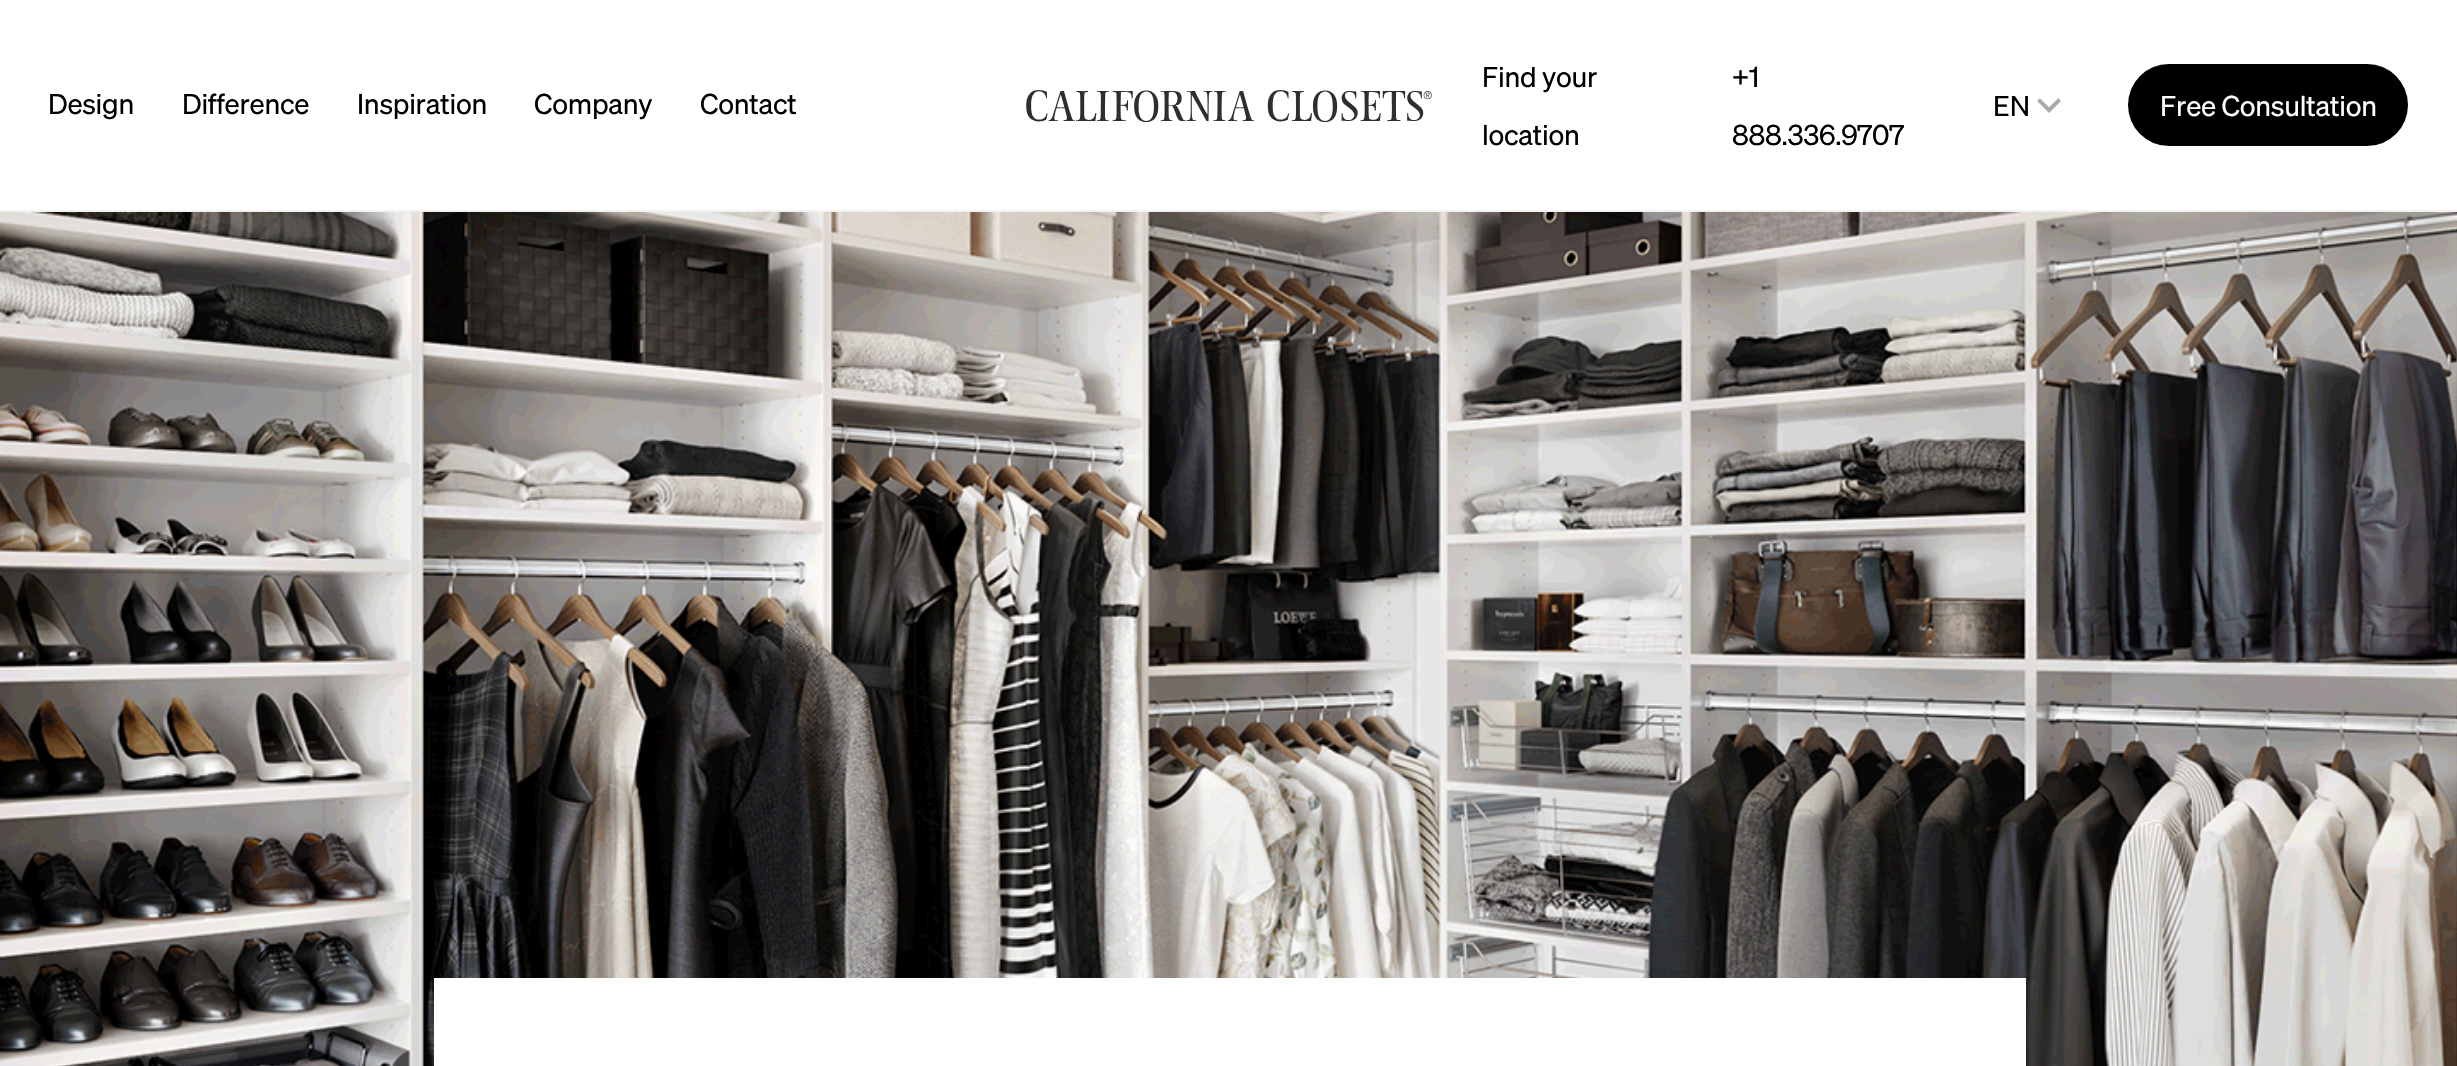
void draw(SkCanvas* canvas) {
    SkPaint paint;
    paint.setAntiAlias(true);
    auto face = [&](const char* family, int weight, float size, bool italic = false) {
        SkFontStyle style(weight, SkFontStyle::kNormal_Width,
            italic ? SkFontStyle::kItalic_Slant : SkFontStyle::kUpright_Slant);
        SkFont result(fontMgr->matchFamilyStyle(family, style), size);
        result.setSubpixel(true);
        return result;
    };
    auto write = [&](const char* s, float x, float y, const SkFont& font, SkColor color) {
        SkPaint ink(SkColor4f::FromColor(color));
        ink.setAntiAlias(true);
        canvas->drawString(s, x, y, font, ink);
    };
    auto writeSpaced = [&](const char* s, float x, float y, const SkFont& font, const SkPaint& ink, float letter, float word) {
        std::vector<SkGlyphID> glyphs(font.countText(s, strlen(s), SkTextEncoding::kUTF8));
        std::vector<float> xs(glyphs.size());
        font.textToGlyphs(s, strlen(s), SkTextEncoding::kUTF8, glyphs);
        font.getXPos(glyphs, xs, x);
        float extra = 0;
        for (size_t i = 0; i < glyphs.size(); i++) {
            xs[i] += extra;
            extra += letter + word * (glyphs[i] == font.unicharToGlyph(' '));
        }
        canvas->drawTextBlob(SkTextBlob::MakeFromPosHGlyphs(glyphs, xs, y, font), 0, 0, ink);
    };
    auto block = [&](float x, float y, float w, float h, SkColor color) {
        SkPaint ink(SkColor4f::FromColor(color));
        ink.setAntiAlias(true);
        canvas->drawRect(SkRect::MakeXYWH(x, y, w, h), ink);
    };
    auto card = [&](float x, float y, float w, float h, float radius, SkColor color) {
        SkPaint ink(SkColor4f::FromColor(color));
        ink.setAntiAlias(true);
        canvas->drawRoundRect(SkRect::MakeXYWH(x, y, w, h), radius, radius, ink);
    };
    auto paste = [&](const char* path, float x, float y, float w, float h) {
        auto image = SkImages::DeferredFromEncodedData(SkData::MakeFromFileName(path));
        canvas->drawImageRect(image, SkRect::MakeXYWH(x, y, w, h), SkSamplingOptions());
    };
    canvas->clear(SK_ColorWHITE);
    block(0, 210, 2457, 2, SkColorSetRGB(242, 242, 242));
    auto kFont1 = face("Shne", 400, 28);
    paint.setColor(SK_ColorBLACK);
    writeSpaced("Design", 48, 114, kFont1, paint, -0.25f, 0);
    writeSpaced("Difference", 182, 114, kFont1, paint, -0.25f, 0);
    writeSpaced("Inspiration", 357, 114, kFont1, paint, -0.25f, 0);
    writeSpaced("Company", 534, 114, kFont1, paint, -0.25f, 0);
    writeSpaced("Contact", 700, 114, kFont1, paint, -0.25f, 0);
    paste("pic1.png", 1026, 90, 406, 32);
    writeSpaced("Find your", 1482, 87, kFont1, paint, -0.25f, 0);
    writeSpaced("location", 1482, 145, kFont1, paint, -0.25f, 0);
    writeSpaced("+1", 1732, 87, kFont1, paint, -0.25f, 0);
    writeSpaced("888.336.9707", 1732, 145, kFont1, paint, -0.25f, 0);
    write("EN", 1993, 116, kFont1, SK_ColorBLACK);
    paste("pic2.png", 2037, 98, 24, 15);
    card(2128, 64, 280, 82, 41, SK_ColorBLACK);
    paint.setColor(SK_ColorWHITE);
    writeSpaced("Free Consultation", 2160, 116, kFont1, paint, -0.25f, 0);
    paste("pic3.png", 0, 212, 2457, 854);
    block(434, 978, 1592, 88, SK_ColorWHITE);
}
